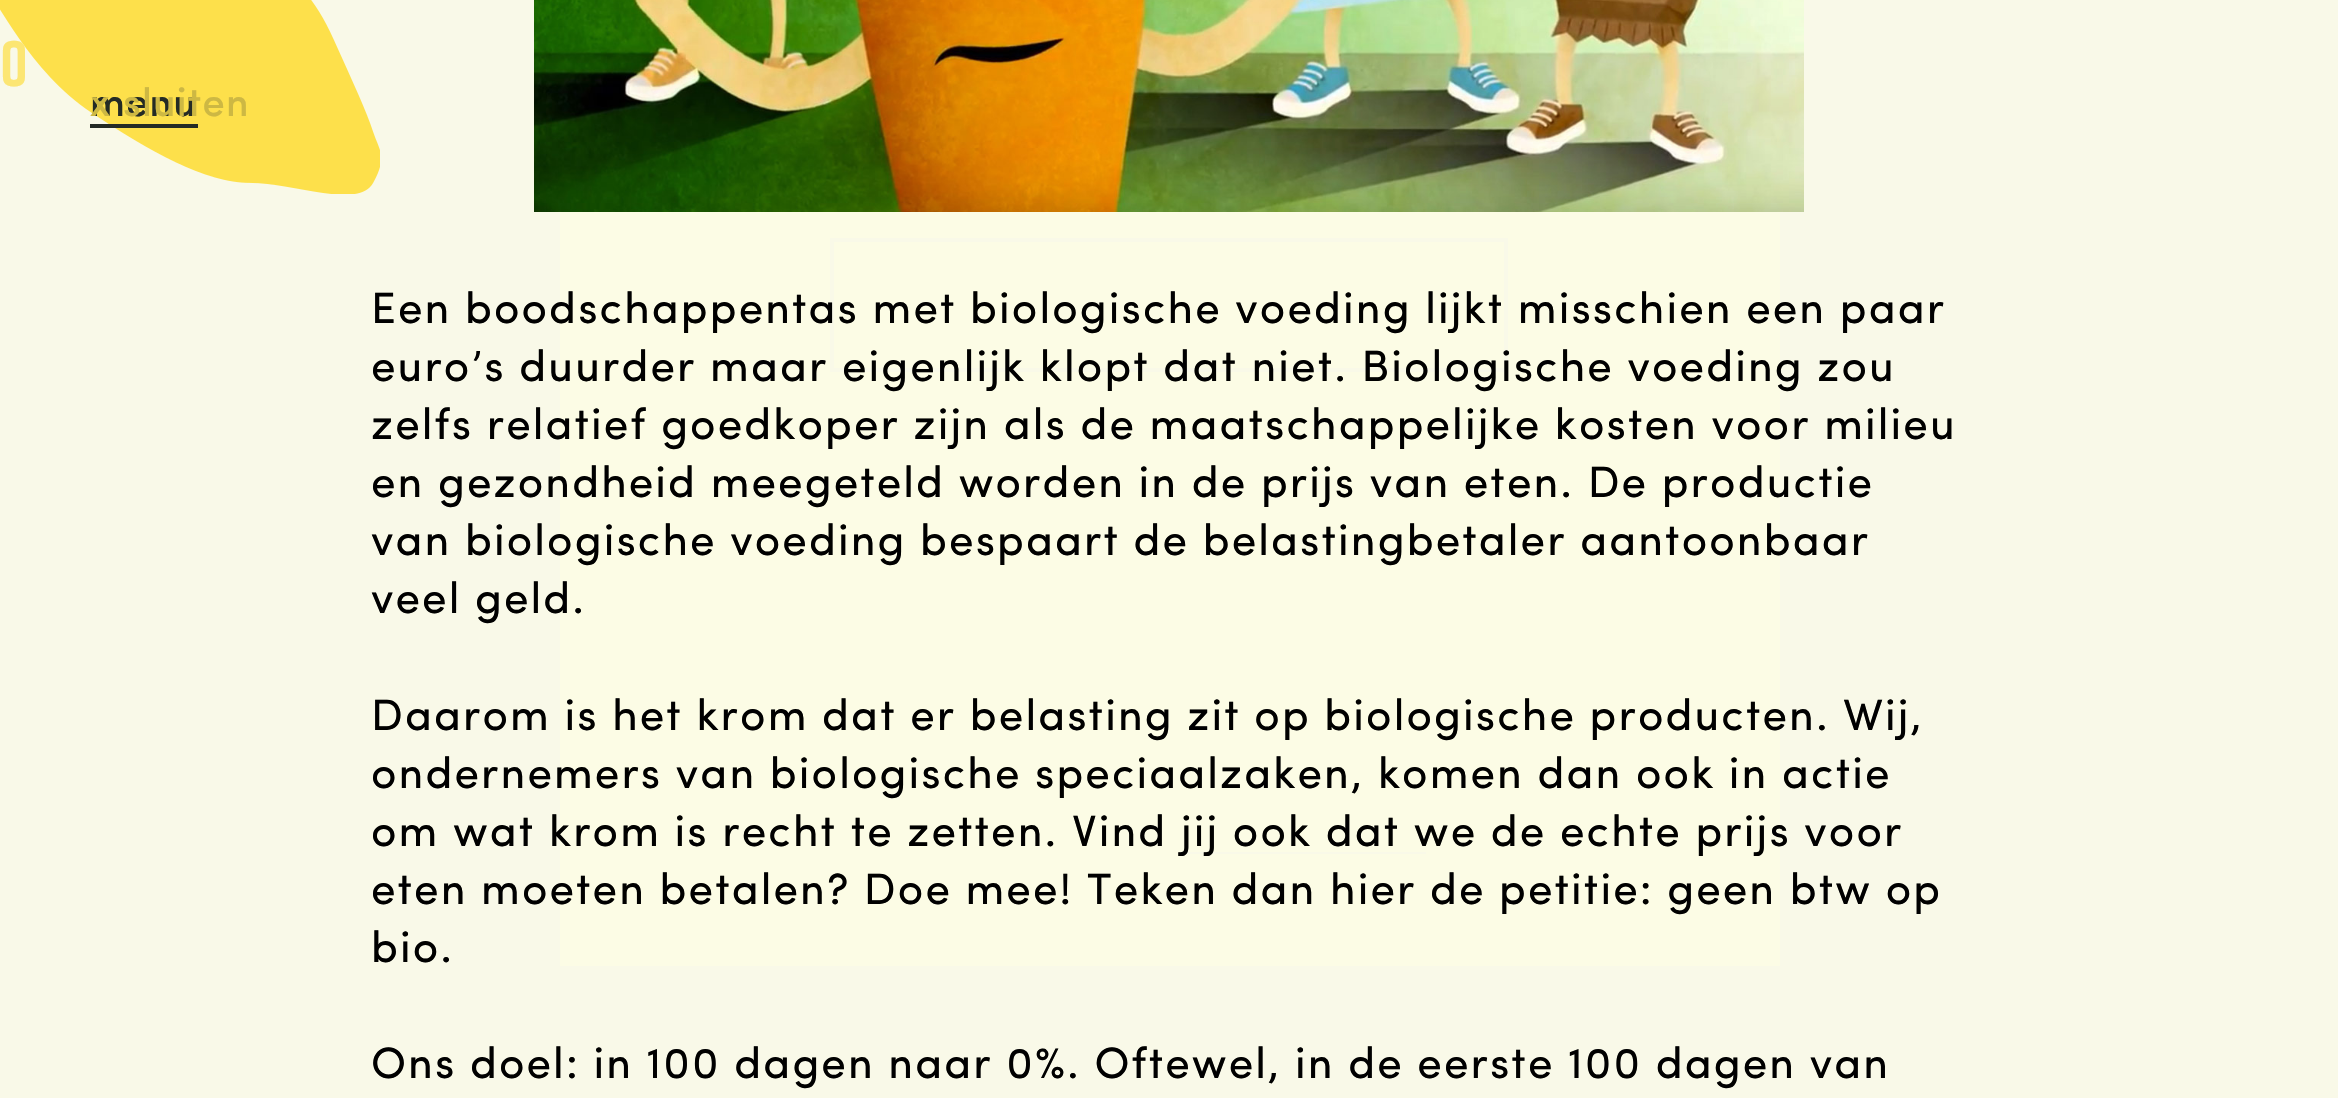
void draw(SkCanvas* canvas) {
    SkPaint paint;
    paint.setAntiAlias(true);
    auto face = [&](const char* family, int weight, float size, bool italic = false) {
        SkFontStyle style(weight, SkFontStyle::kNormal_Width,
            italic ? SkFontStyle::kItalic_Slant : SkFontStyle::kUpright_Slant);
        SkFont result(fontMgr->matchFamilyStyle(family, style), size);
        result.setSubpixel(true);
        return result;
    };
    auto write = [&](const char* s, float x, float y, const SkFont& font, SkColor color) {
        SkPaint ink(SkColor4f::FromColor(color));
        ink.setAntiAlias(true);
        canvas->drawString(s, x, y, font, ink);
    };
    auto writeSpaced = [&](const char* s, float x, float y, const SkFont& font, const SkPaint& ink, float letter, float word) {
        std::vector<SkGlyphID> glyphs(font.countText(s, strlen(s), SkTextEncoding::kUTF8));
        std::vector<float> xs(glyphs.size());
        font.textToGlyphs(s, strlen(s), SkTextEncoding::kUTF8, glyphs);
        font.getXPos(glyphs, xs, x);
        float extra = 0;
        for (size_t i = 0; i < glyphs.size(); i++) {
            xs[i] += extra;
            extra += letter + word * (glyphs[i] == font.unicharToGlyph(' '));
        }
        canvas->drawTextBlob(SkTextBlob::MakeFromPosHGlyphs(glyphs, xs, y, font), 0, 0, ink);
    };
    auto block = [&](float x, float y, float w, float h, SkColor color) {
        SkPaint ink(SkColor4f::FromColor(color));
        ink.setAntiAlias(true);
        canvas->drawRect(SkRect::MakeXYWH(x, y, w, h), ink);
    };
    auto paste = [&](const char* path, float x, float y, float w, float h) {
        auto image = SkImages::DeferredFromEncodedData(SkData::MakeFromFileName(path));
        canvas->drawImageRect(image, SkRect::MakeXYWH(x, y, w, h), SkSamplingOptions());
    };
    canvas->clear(SkColorSetRGB(249, 249, 232));
    paste("pic1.png", 0, 0, 380, 194);
    auto kFont1 = face("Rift", 700, 64);
    write("0", 0, 86, kFont1, SkColorSetRGB(252, 230, 115));
    auto kFont2 = face("Sofia", 500, 40);
    paint.setColor(SkColorSetRGB(36, 43, 37));
    writeSpaced("menu", 90, 116, kFont2, paint, 1.25f, 0);
    paint.setColor(SkColorSetRGB(205, 184, 67));
    writeSpaced("x sluiten", 90, 116, kFont2, paint, 1.25f, 0);
    block(90, 124, 108, 4, SkColorSetRGB(36, 43, 37));
    block(560, 212, 1220, 754, SkColorSetRGB(252, 252, 229));
    paint.setStyle(SkPaint::kStroke_Style);
    paint.setStrokeWidth(4);
    paint.setColor(SkColorSetRGB(249, 249, 232));
    canvas->drawRect(SkRect::MakeXYWH(832, 240, 674, 130), paint);
    block(1182, 852, 244, 2, SkColorSetRGB(249, 249, 232));
    paste("pic2.png", 534, 0, 1270, 212);
    auto kFont3 = face("Sofia", 400, 44);
    paint.setStyle(SkPaint::kFill_Style);
    paint.setColor(SK_ColorBLACK);
    writeSpaced("Een boodschappentas met biologische voeding lijkt misschien een paar", 371, 323, kFont3, paint, 2.1f, 0);
    writeSpaced("euro’s duurder maar eigenlijk klopt dat niet. Biologische voeding zou", 371, 381, kFont3, paint, 2.1f, 0);
    writeSpaced("zelfs relatief goedkoper zijn als de maatschappelijke kosten voor milieu", 371, 439, kFont3, paint, 2.1f, 0);
    writeSpaced("en gezondheid meegeteld worden in de prijs van eten. De productie", 371, 497, kFont3, paint, 2.1f, 0);
    writeSpaced("van biologische voeding bespaart de belastingbetaler aantoonbaar", 371, 555, kFont3, paint, 2.1f, 0);
    writeSpaced("veel geld.", 371, 613, kFont3, paint, 2.1f, 0);
    writeSpaced("Daarom is het krom dat er belasting zit op biologische producten. Wij,", 371, 730, kFont3, paint, 2.1f, 0);
    writeSpaced("ondernemers van biologische speciaalzaken, komen dan ook in actie", 371, 788, kFont3, paint, 2.1f, 0);
    writeSpaced("om wat krom is recht te zetten. Vind jij ook dat we de echte prijs voor", 371, 846, kFont3, paint, 2.1f, 0);
    writeSpaced("eten moeten betalen? Doe mee! Teken dan hier de petitie: geen btw op", 371, 904, kFont3, paint, 2.1f, 0);
    writeSpaced("bio.", 371, 962, kFont3, paint, 2.1f, 0);
    writeSpaced("Ons doel: in 100 dagen naar 0%. Oftewel, in de eerste 100 dagen van", 371, 1078, kFont3, paint, 2.1f, 0);
}
